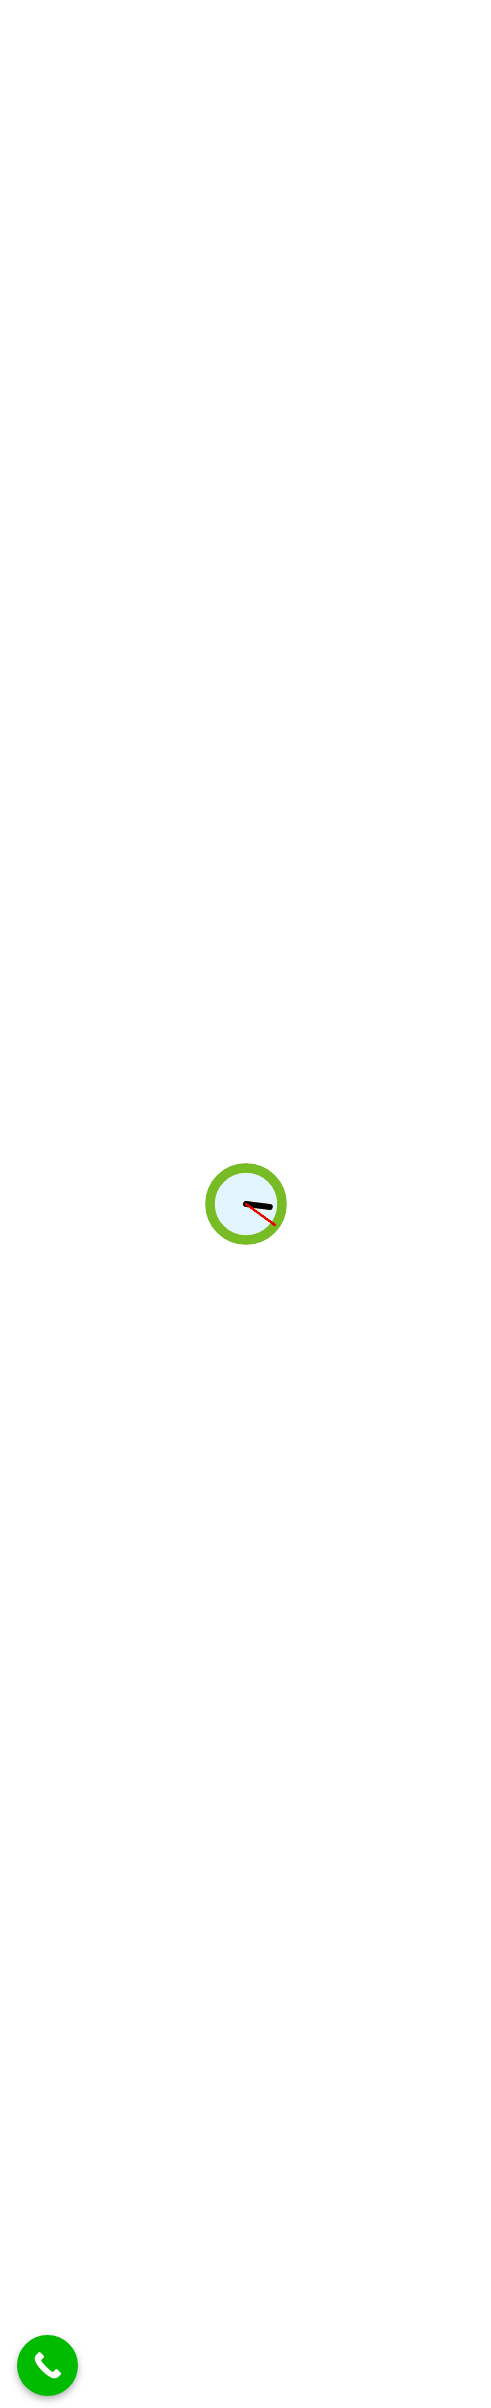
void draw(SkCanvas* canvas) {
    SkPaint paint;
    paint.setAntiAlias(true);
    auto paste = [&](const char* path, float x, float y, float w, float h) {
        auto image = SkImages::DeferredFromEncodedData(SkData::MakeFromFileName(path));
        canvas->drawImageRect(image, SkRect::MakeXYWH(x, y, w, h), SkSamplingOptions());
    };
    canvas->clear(SK_ColorWHITE);
    paste("pic1.png", 205, 1163, 82, 82);
    paint.setColor(SkColorSetARGB(77, 0, 0, 0));
    paint.setMaskFilter(SkMaskFilter::MakeBlur(kNormal_SkBlurStyle, 3.5f));
    canvas->drawRoundRect(SkRect::MakeXYWH(17, 2339, 61, 60), 30, 30, paint);
    paint.setMaskFilter(nullptr);
    paint.setColor(SkColorSetRGB(0, 187, 0));
    canvas->drawCircle(47.5f, 2365.5f, 30.5f, paint);
    paste("pic2.png", 34, 2352, 28, 27);
}
